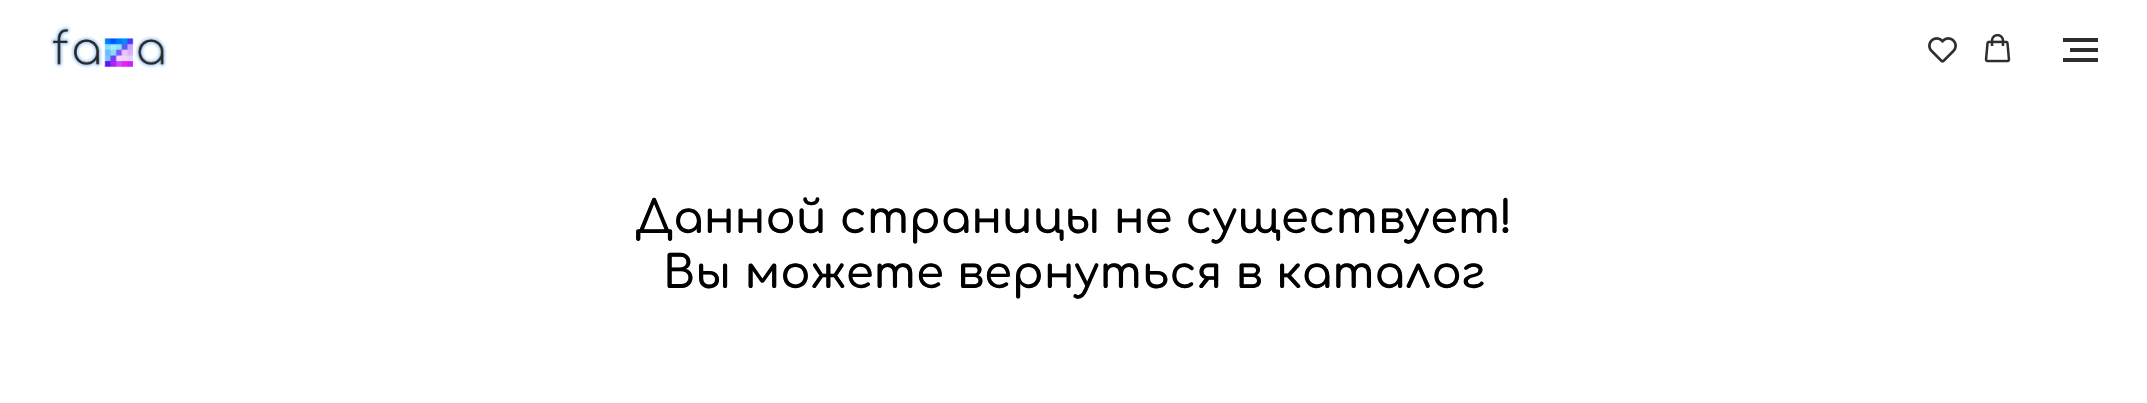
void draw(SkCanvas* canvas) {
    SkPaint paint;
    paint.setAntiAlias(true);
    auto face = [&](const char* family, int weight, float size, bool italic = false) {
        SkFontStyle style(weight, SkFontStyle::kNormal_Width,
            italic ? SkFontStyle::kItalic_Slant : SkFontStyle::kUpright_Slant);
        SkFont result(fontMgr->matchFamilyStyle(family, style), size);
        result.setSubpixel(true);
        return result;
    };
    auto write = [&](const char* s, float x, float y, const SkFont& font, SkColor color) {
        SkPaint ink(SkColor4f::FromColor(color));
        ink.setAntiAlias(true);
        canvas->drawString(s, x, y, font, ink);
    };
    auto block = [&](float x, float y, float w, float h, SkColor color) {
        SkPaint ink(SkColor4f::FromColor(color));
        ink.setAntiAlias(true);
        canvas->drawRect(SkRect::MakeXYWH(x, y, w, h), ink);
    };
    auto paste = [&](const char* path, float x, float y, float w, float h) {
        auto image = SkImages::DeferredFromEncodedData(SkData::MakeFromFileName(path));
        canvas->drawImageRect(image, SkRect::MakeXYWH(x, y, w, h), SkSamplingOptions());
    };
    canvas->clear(SK_ColorWHITE);
    paste("pic1.png", 50, 26, 117, 42);
    paste("pic2.png", 1928, 37, 29, 26);
    paste("pic3.png", 1984, 34, 27, 29);
    block(2063, 38, 35, 4, SkColorSetRGB(46, 46, 46));
    block(2070, 48, 28, 4, SkColorSetRGB(46, 46, 46));
    block(2063, 58, 35, 4, SkColorSetRGB(46, 46, 46));
    auto kFont1 = face("Comfortaa", 600, 45);
    write("Данной страницы не существует!", 635, 233, kFont1, SK_ColorBLACK);
    write("Вы можете вернуться в каталог", 663, 288, kFont1, SK_ColorBLACK);
}
